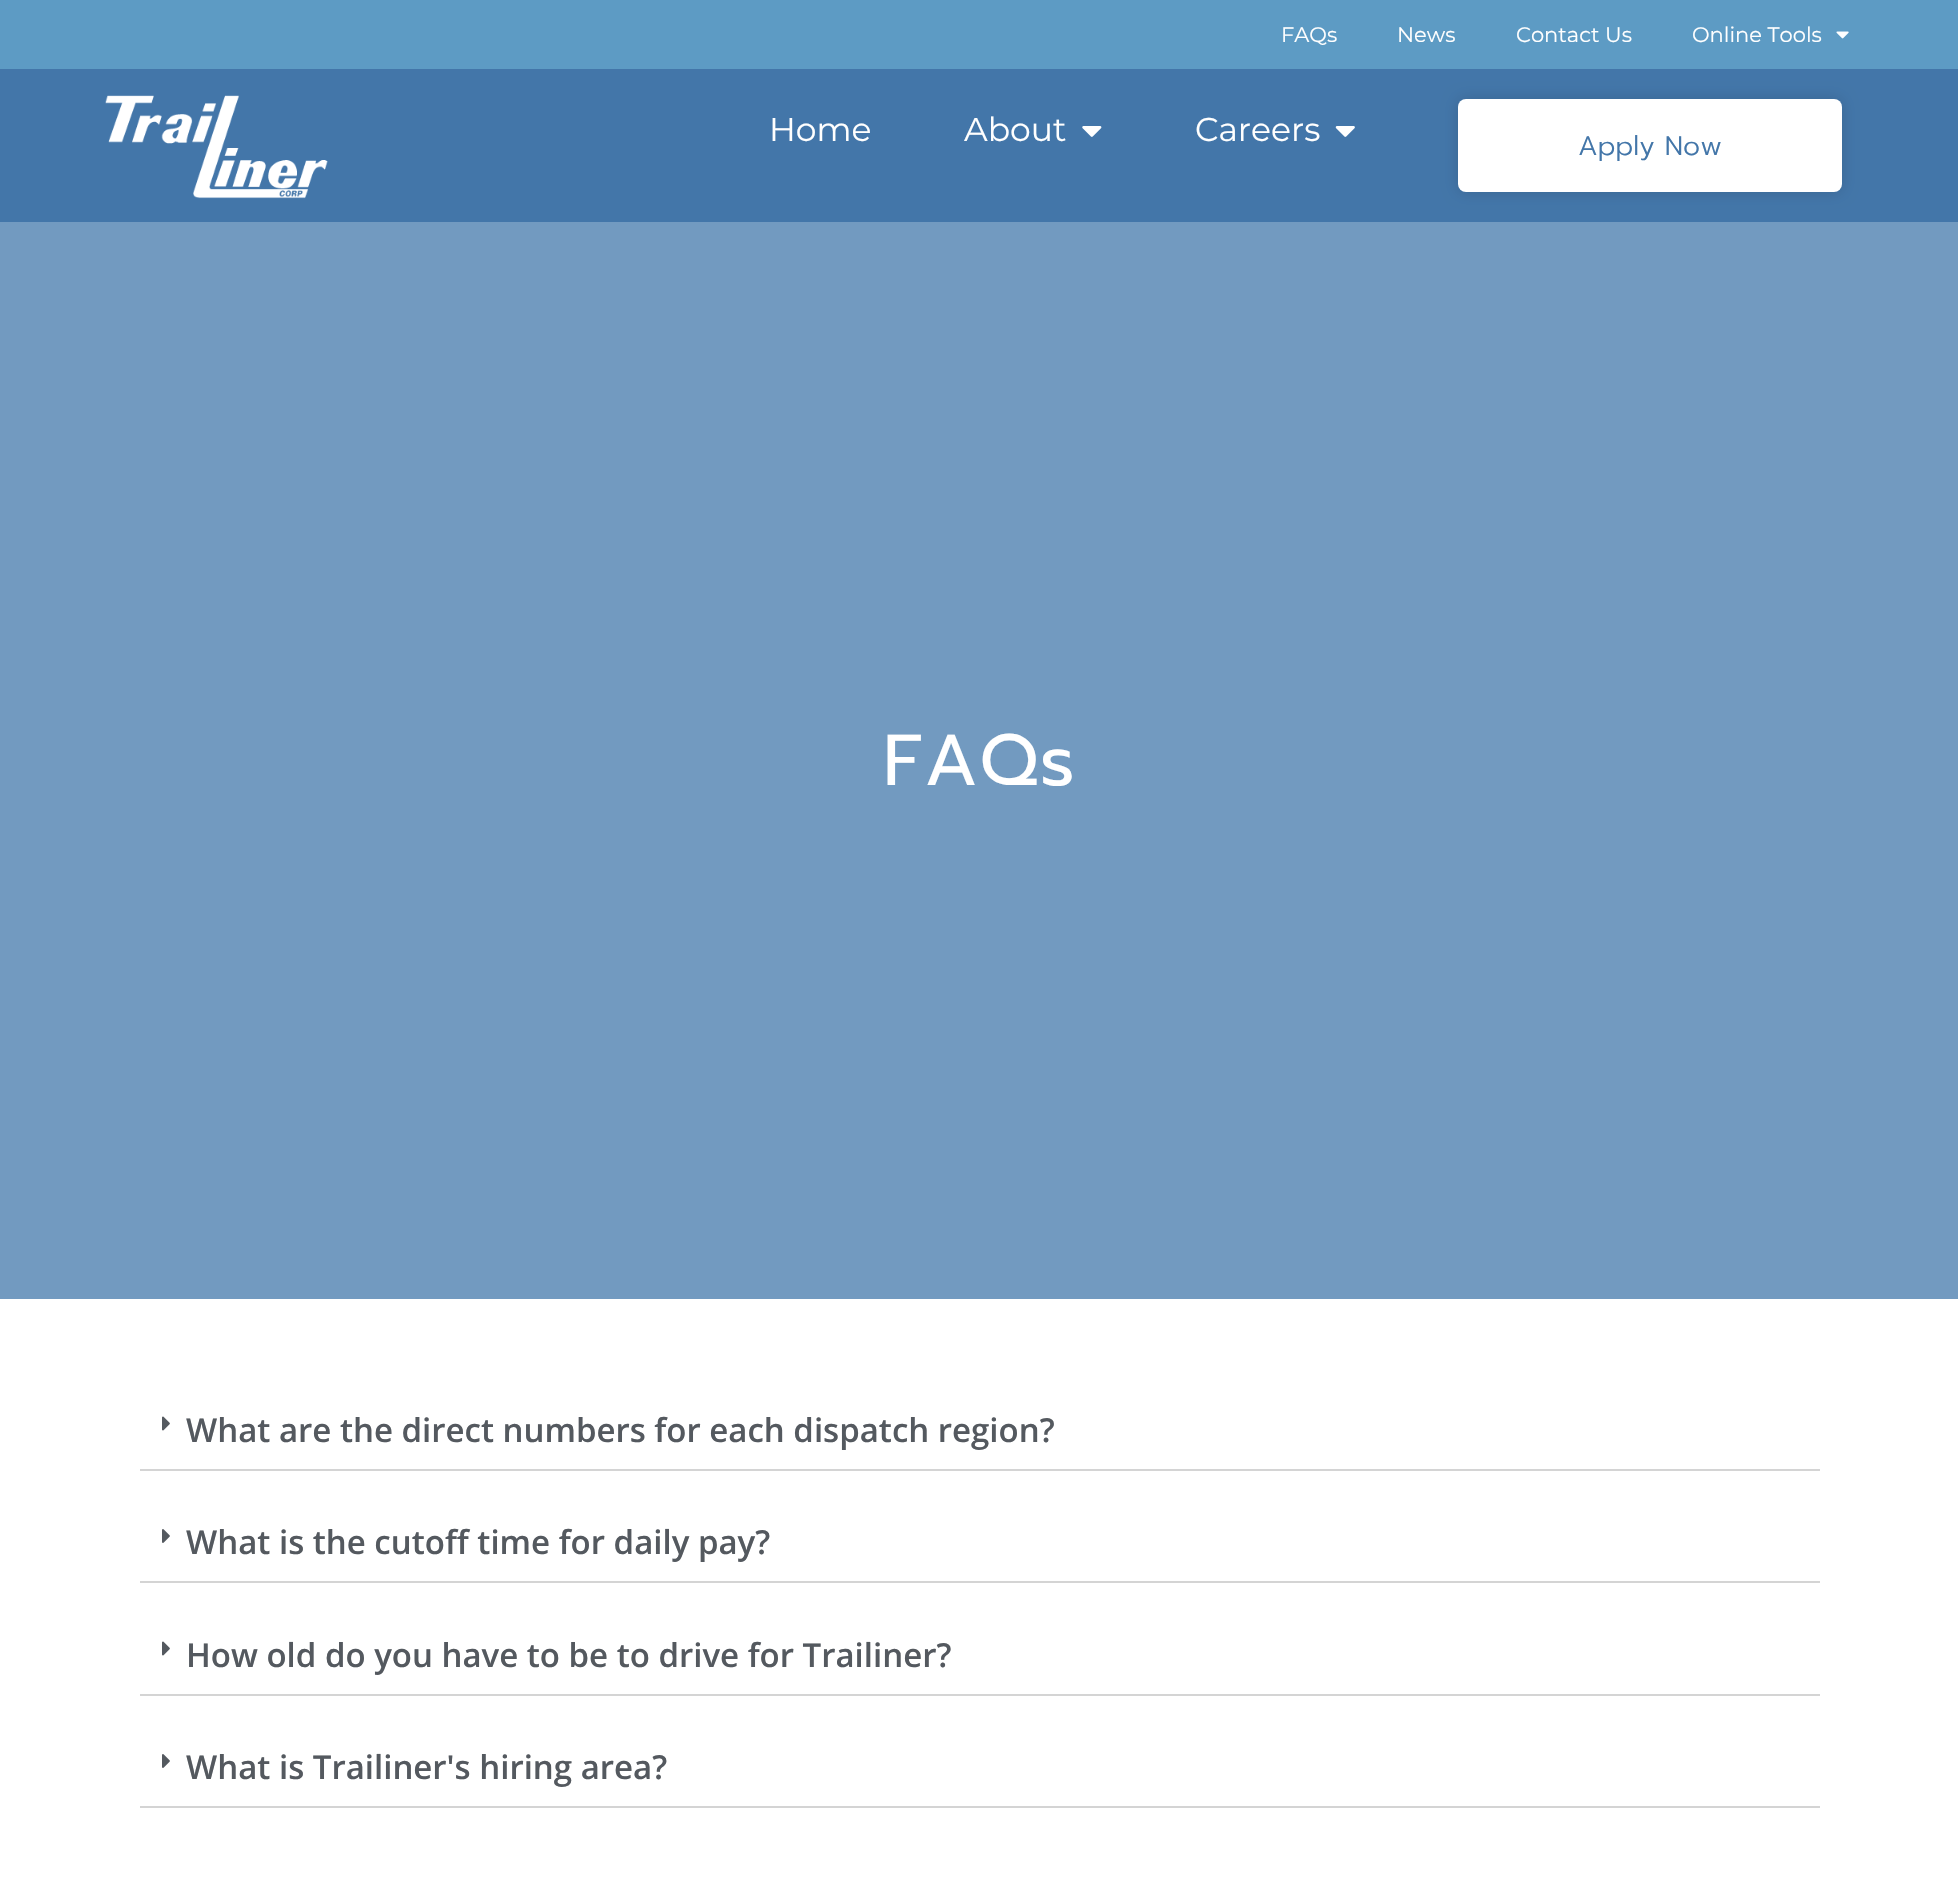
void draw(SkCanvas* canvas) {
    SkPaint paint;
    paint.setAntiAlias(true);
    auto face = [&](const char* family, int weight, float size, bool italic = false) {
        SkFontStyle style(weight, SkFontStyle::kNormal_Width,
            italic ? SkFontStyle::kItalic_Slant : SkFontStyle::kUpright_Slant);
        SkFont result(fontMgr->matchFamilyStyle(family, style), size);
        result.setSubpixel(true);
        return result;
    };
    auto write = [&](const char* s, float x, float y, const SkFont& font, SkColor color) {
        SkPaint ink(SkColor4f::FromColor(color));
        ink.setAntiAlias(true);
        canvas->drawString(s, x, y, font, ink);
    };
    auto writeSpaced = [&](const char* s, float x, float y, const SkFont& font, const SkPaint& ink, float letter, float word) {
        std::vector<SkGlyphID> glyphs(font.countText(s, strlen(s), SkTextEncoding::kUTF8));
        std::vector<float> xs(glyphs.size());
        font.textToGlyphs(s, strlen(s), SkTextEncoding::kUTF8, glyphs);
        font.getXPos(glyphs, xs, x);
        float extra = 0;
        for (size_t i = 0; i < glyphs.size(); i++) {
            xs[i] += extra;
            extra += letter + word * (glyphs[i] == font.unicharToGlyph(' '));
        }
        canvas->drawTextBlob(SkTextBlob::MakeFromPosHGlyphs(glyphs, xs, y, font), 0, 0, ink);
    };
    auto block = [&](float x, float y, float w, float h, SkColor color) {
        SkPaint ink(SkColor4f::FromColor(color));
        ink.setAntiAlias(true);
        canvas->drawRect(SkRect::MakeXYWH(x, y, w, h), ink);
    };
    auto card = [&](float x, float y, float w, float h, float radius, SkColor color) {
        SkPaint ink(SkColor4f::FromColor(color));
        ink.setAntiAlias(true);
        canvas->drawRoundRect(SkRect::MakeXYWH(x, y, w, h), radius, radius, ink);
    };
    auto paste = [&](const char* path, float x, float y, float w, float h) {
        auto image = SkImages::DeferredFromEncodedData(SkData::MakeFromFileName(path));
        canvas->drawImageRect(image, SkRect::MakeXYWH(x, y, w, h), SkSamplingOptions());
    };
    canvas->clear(SK_ColorWHITE);
    block(0, 0, 1958, 69, SkColorSetRGB(93, 155, 196));
    auto kFont1 = face("Montserrat", 400, 21);
    write("FAQs", 1281, 42, kFont1, SK_ColorWHITE);
    write("News", 1397, 42, kFont1, SK_ColorWHITE);
    write("Contact Us", 1516, 42, kFont1, SK_ColorWHITE);
    write("Online Tools", 1692, 42, kFont1, SK_ColorWHITE);
    paste("pic1.png", 1836, 31, 13, 8);
    block(0, 69, 1958, 153, SkColorSetRGB(67, 118, 169));
    paste("pic2.png", 105, 95, 223, 104);
    auto kFont2 = face("Montserrat", 400, 33);
    write("Home", 769, 141, kFont2, SK_ColorWHITE);
    write("About", 964, 141, kFont2, SK_ColorWHITE);
    paste("pic3.png", 1082, 126, 20, 11);
    write("Careers", 1195, 141, kFont2, SK_ColorWHITE);
    paste("pic4.png", 1335, 126, 20, 11);
    paint.setColor(SkColorSetARGB(36, 0, 0, 0));
    paint.setMaskFilter(SkMaskFilter::MakeBlur(kNormal_SkBlurStyle, 7.5f));
    canvas->drawRoundRect(SkRect::MakeXYWH(1458, 99, 384, 93), 8, 8, paint);
    paint.setMaskFilter(nullptr);
    card(1458, 99, 384, 93, 8, SK_ColorWHITE);
    auto kFont3 = face("Prompt", 300, 27);
    write("Apply Now", 1578, 155, kFont3, SkColorSetRGB(67, 118, 169));
    block(0, 222, 1958, 1077, SkColorSetRGB(114, 154, 192));
    auto kFont4 = face("Prompt", 400, 72);
    paint.setColor(SK_ColorWHITE);
    writeSpaced("FAQs", 883, 785, kFont4, paint, 1.5f, 0);
    block(140, 1469, 1680, 2, SkColorSetRGB(212, 212, 212));
    paste("pic5.png", 162, 1416, 8, 15);
    auto kFont5 = face("Open Sans", 600, 33);
    write("What are the direct numbers for each dispatch region?", 186, 1442, kFont5, SkColorSetRGB(84, 89, 95));
    block(140, 1581, 1680, 2, SkColorSetRGB(212, 212, 212));
    paste("pic6.png", 162, 1529, 8, 14);
    write("What is the cutoff time for daily pay?", 186, 1554, kFont5, SkColorSetRGB(84, 89, 95));
    block(140, 1694, 1680, 2, SkColorSetRGB(212, 212, 212));
    paste("pic5.png", 162, 1641, 8, 15);
    write("How old do you have to be to drive for Trailiner?", 186, 1667, kFont5, SkColorSetRGB(84, 89, 95));
    block(140, 1806, 1680, 2, SkColorSetRGB(212, 212, 212));
    paste("pic6.png", 162, 1754, 8, 14);
    write("What is Trailiner's hiring area?", 186, 1779, kFont5, SkColorSetRGB(84, 89, 95));
}
